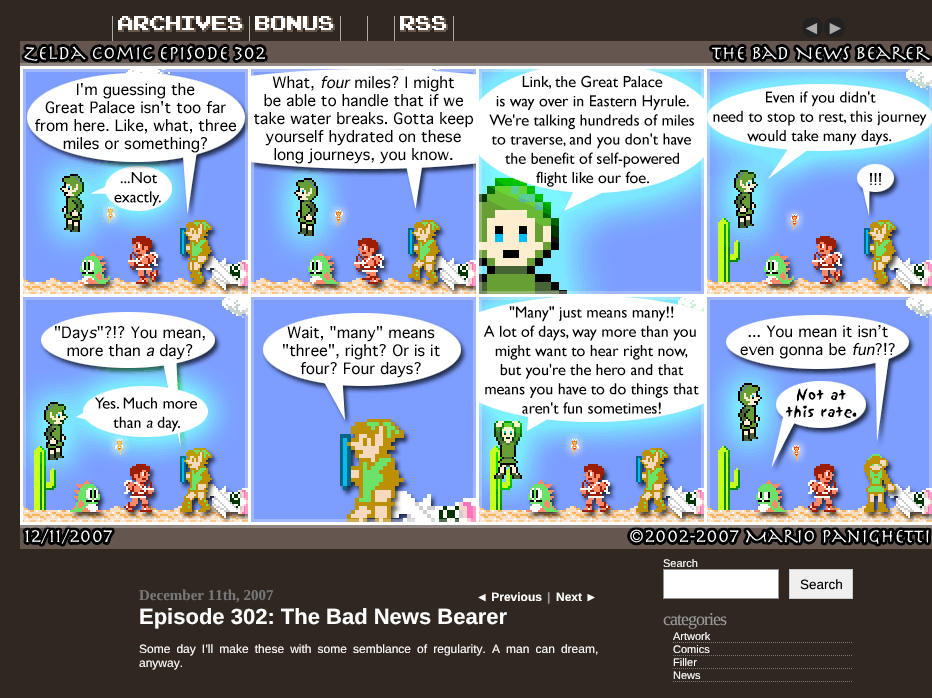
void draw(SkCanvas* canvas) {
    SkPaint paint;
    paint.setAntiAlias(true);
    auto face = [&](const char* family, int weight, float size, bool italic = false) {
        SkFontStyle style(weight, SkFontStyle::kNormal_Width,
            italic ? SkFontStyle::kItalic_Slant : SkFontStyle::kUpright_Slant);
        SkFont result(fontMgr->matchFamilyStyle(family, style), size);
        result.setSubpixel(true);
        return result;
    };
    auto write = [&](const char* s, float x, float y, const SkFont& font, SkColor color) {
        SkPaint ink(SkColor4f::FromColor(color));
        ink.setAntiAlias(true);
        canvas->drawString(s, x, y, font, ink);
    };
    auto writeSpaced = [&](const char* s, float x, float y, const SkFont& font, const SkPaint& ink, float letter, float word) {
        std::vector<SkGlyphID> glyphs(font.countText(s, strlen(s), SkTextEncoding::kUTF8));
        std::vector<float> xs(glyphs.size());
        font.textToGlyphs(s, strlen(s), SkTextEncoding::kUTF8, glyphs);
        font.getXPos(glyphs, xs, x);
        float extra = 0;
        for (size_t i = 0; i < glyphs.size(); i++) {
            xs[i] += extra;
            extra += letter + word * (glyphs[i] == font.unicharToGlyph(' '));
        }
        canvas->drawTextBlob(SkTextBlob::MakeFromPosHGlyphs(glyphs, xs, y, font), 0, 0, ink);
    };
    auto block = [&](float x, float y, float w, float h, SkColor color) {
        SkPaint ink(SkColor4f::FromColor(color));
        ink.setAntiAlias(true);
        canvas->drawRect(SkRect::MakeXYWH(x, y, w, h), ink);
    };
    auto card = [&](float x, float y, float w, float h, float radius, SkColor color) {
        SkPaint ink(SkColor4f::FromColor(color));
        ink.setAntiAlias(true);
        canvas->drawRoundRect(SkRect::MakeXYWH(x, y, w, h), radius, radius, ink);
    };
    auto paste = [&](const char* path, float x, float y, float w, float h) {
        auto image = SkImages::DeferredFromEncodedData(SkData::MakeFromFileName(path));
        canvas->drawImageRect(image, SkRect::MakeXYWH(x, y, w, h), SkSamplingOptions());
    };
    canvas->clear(SkColorSetRGB(47, 39, 32));
    block(112, 16, 1, 25, SkColorSetRGB(170, 170, 170));
    block(249, 16, 1, 25, SkColorSetRGB(170, 170, 170));
    paste("pic1.png", 118, 16, 126, 16);
    block(340, 16, 1, 25, SkColorSetRGB(170, 170, 170));
    paste("pic2.png", 255, 16, 80, 16);
    block(367, 16, 1, 25, SkColorSetRGB(170, 170, 170));
    block(394, 16, 1, 25, SkColorSetRGB(170, 170, 170));
    block(453, 16, 1, 25, SkColorSetRGB(170, 170, 170));
    paste("pic3.png", 400, 16, 48, 16);
    card(802, 17, 21, 21, 10, SkColorSetRGB(34, 34, 34));
    auto kFont1 = face("Liberation Sans", 400, 19);
    write("◄", 802, 34, kFont1, SkColorSetRGB(170, 170, 170));
    card(824, 17, 21, 21, 10, SkColorSetRGB(34, 34, 34));
    write("►", 826, 34, kFont1, SkColorSetRGB(170, 170, 170));
    paste("pic4.png", 20, 41, 912, 508);
    auto kFont2 = face("Liberation Serif", 700, 15);
    write("December 11th, 2007", 139, 600, kFont2, SkColorSetRGB(119, 119, 119));
    auto kFont3 = face("Liberation Sans", 700, 12);
    write("◄ Previous", 476, 601, kFont3, SK_ColorWHITE);
    write("|", 547, 601, kFont3, SkColorSetRGB(153, 153, 153));
    write("Next ►", 556, 601, kFont3, SK_ColorWHITE);
    auto kFont4 = face("Liberation Sans", 700, 22);
    write("Episode 302: The Bad News Bearer", 139, 624, kFont4, SK_ColorWHITE);
    auto kFont5 = face("Liberation Sans", 400, 12);
    paint.setColor(SK_ColorWHITE);
    writeSpaced("Some day I’ll make these with some semblance of regularity. A man can dream,", 139, 653, kFont5, paint, 0, 2.75f);
    write("anyway.", 139, 667, kFont5, SK_ColorWHITE);
    auto kFont6 = face("Liberation Sans", 400, 11);
    write("Search", 663, 567, kFont6, SK_ColorWHITE);
    canvas->drawRect(SkRect::MakeXYWH(663.5f, 569.5f, 115, 29), paint);
    paint.setStyle(SkPaint::kStroke_Style);
    paint.setStrokeWidth(1);
    paint.setColor(SkColorSetRGB(148, 148, 148));
    canvas->drawRect(SkRect::MakeXYWH(663.5f, 569.5f, 115, 29), paint);
    paint.setStyle(SkPaint::kFill_Style);
    paint.setColor(SkColorSetRGB(239, 239, 239));
    canvas->drawRect(SkRect::MakeXYWH(789.5f, 569.5f, 63, 29), paint);
    paint.setStyle(SkPaint::kStroke_Style);
    paint.setColor(SkColorSetRGB(204, 204, 204));
    canvas->drawRect(SkRect::MakeXYWH(789.5f, 569.5f, 63, 29), paint);
    auto kFont7 = face("Liberation Sans", 400, 13.5f);
    write("Search", 800, 589, kFont7, SK_ColorBLACK);
    auto kFont8 = face("Liberation Serif", 400, 18);
    paint.setStyle(SkPaint::kFill_Style);
    paint.setColor(SkColorSetRGB(153, 153, 153));
    writeSpaced("categories", 663, 625, kFont8, paint, -1, 0);
    paint.setStyle(SkPaint::kStroke_Style);
    paint.setColor(SkColorSetRGB(119, 119, 119));
    paint.setPathEffect(SkDashPathEffect::Make({{1, 1}}, 0));
    canvas->drawPath(SkPathBuilder().moveTo(673, 642.5f).lineTo(853, 642.5f).detach(), paint);
    paint.setPathEffect(nullptr);
    write("Artwork", 673, 640, kFont6, SK_ColorWHITE);
    paint.setPathEffect(SkDashPathEffect::Make({{1, 1}}, 0));
    canvas->drawPath(SkPathBuilder().moveTo(673, 655.5f).lineTo(853, 655.5f).detach(), paint);
    paint.setPathEffect(nullptr);
    write("Comics", 673, 653, kFont6, SK_ColorWHITE);
    paint.setPathEffect(SkDashPathEffect::Make({{1, 1}}, 0));
    canvas->drawPath(SkPathBuilder().moveTo(673, 668.5f).lineTo(853, 668.5f).detach(), paint);
    paint.setPathEffect(nullptr);
    write("Filler", 673, 666, kFont6, SK_ColorWHITE);
    paint.setPathEffect(SkDashPathEffect::Make({{1, 1}}, 0));
    canvas->drawPath(SkPathBuilder().moveTo(673, 681.5f).lineTo(853, 681.5f).detach(), paint);
    paint.setPathEffect(nullptr);
    write("News", 673, 679, kFont6, SK_ColorWHITE);
}
